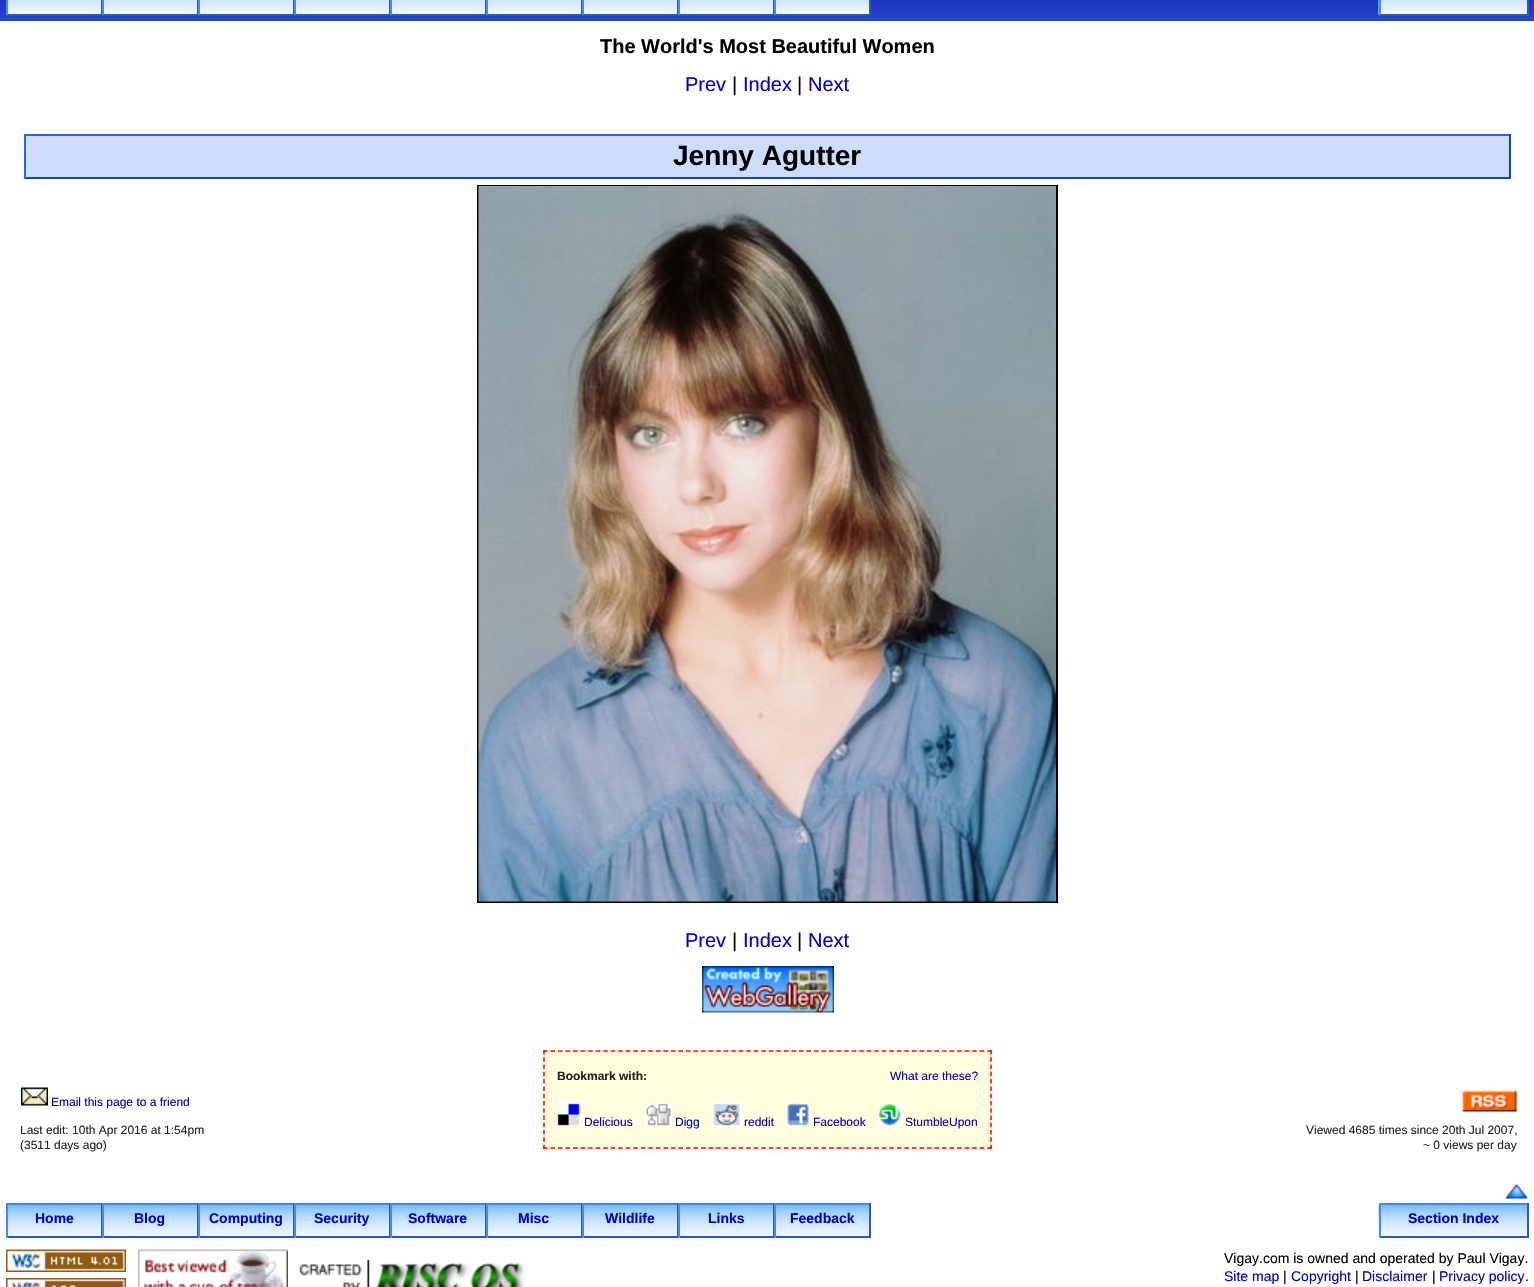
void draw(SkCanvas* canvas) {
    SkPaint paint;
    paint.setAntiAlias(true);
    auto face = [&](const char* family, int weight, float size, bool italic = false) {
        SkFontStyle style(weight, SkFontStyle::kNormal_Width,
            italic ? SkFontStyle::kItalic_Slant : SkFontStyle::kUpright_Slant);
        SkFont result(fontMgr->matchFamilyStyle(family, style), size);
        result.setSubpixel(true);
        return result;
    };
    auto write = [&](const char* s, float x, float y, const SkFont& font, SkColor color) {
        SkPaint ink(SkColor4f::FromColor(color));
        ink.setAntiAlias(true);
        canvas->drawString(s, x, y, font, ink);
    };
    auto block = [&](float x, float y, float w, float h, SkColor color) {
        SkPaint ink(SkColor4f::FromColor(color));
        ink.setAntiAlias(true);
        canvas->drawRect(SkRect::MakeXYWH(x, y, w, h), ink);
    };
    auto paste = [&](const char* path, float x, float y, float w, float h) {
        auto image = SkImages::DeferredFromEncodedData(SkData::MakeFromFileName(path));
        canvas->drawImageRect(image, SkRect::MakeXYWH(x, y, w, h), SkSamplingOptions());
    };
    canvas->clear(SK_ColorWHITE);
    paste("pic1.png", 0, 0, 1534, 21);
    paste("pic2.png", 8, 0, 93, 14);
    block(101, 0, 1, 15, SkColorSetRGB(45, 91, 170));
    block(6, 14, 96, 2, SkColorSetRGB(45, 91, 170));
    block(6, 0, 2, 15, SkColorSetRGB(68, 136, 255));
    paste("pic2.png", 104, 0, 93, 14);
    block(197, 0, 1, 15, SkColorSetRGB(45, 91, 170));
    block(102, 14, 96, 2, SkColorSetRGB(45, 91, 170));
    block(102, 0, 2, 15, SkColorSetRGB(68, 136, 255));
    paste("pic2.png", 200, 0, 93, 14);
    block(293, 0, 1, 15, SkColorSetRGB(45, 91, 170));
    block(198, 14, 96, 2, SkColorSetRGB(45, 91, 170));
    block(198, 0, 2, 15, SkColorSetRGB(68, 136, 255));
    paste("pic2.png", 296, 0, 93, 14);
    block(389, 0, 1, 15, SkColorSetRGB(45, 91, 170));
    block(294, 14, 96, 2, SkColorSetRGB(45, 91, 170));
    block(294, 0, 2, 15, SkColorSetRGB(68, 136, 255));
    paste("pic2.png", 392, 0, 93, 14);
    block(485, 0, 1, 15, SkColorSetRGB(45, 91, 170));
    block(390, 14, 96, 2, SkColorSetRGB(45, 91, 170));
    block(390, 0, 2, 15, SkColorSetRGB(68, 136, 255));
    paste("pic2.png", 488, 0, 93, 14);
    block(581, 0, 1, 15, SkColorSetRGB(45, 91, 170));
    block(486, 14, 96, 2, SkColorSetRGB(45, 91, 170));
    block(486, 0, 2, 15, SkColorSetRGB(68, 136, 255));
    paste("pic2.png", 584, 0, 93, 14);
    block(677, 0, 1, 15, SkColorSetRGB(45, 91, 170));
    block(582, 14, 96, 2, SkColorSetRGB(45, 91, 170));
    block(582, 0, 2, 15, SkColorSetRGB(68, 136, 255));
    paste("pic2.png", 680, 0, 93, 14);
    block(773, 0, 1, 15, SkColorSetRGB(45, 91, 170));
    block(678, 14, 96, 2, SkColorSetRGB(45, 91, 170));
    block(678, 0, 2, 15, SkColorSetRGB(68, 136, 255));
    paste("pic2.png", 776, 0, 93, 14);
    block(869, 0, 2, 15, SkColorSetRGB(45, 91, 170));
    block(774, 14, 96, 2, SkColorSetRGB(45, 91, 170));
    block(774, 0, 2, 15, SkColorSetRGB(68, 136, 255));
    paste("pic3.png", 1378, 0, 149, 15);
    block(1527, 0, 2, 15, SkColorSetRGB(45, 91, 170));
    block(1379, 14, 150, 2, SkColorSetRGB(45, 91, 170));
    block(1379, 0, 2, 15, SkColorSetRGB(68, 136, 255));
    auto kFont1 = face("Liberation Sans", 700, 20);
    write("The World's Most Beautiful Women", 600, 53, kFont1, SK_ColorBLACK);
    auto kFont2 = face("Liberation Sans", 400, 20);
    write("Prev", 685, 91, kFont2, SkColorSetRGB(0, 0, 204));
    write("|", 732, 91, kFont2, SK_ColorBLACK);
    write("Index", 743, 91, kFont2, SkColorSetRGB(0, 0, 204));
    write("|", 797, 91, kFont2, SK_ColorBLACK);
    write("Next", 808, 91, kFont2, SkColorSetRGB(0, 0, 204));
    block(26, 136, 1483, 41, SkColorSetRGB(204, 221, 255));
    block(24, 134, 1487, 2, SkColorSetRGB(34, 102, 255));
    block(1509, 134, 2, 45, SkColorSetRGB(23, 68, 170));
    block(24, 177, 1487, 2, SkColorSetRGB(23, 68, 170));
    block(24, 134, 2, 45, SkColorSetRGB(34, 102, 255));
    auto kFont3 = face("Liberation Sans", 700, 28);
    write("Jenny Agutter", 673, 165, kFont3, SK_ColorBLACK);
    paint.setStyle(SkPaint::kStroke_Style);
    paint.setStrokeWidth(2);
    paint.setColor(SK_ColorBLACK);
    canvas->drawRect(SkRect::MakeXYWH(478, 186, 579, 716), paint);
    paste("pic4.png", 478, 186, 578, 716);
    write("Prev", 685, 947, kFont2, SkColorSetRGB(0, 0, 204));
    write("|", 732, 947, kFont2, SK_ColorBLACK);
    write("Index", 743, 947, kFont2, SkColorSetRGB(0, 0, 204));
    write("|", 797, 947, kFont2, SK_ColorBLACK);
    write("Next", 808, 947, kFont2, SkColorSetRGB(0, 0, 204));
    paste("pic5.png", 702, 966, 132, 47);
    paste("pic6.png", 21, 1087, 27, 19);
    auto kFont4 = face("Liberation Sans", 400, 12);
    write("Email this page to a friend", 51, 1106, kFont4, SkColorSetRGB(0, 0, 204));
    write("Last edit: 10th Apr 2016 at 1:54pm", 20, 1134, kFont4, SkColorSetRGB(34, 34, 34));
    write("(3511 days ago)", 20, 1149, kFont4, SkColorSetRGB(34, 34, 34));
    block(543, 1050, 449, 99, SkColorSetRGB(255, 255, 221));
    paint.setStrokeWidth(1.5f);
    paint.setColor(SkColorSetRGB(255, 0, 0));
    paint.setPathEffect(SkDashPathEffect::Make({{4.5f, 3.03f}}, 0));
    canvas->drawPath(SkPathBuilder().moveTo(543, 1051).lineTo(991.5f, 1051).detach(), paint);
    paint.setPathEffect(nullptr);
    paint.setPathEffect(SkDashPathEffect::Make({{4.5f, 2.78f}}, 0));
    canvas->drawPath(SkPathBuilder().moveTo(991, 1050).lineTo(991, 1149).detach(), paint);
    paint.setPathEffect(nullptr);
    paint.setPathEffect(SkDashPathEffect::Make({{4.5f, 3.03f}}, 0));
    canvas->drawPath(SkPathBuilder().moveTo(543, 1148).lineTo(991.5f, 1148).detach(), paint);
    paint.setPathEffect(nullptr);
    paint.setPathEffect(SkDashPathEffect::Make({{4.5f, 2.78f}}, 0));
    canvas->drawPath(SkPathBuilder().moveTo(544, 1050).lineTo(544, 1149).detach(), paint);
    paint.setPathEffect(nullptr);
    auto kFont5 = face("Liberation Sans", 700, 12);
    write("Bookmark with:", 557, 1080, kFont5, SkColorSetRGB(34, 34, 34));
    write("What are these?", 890, 1080, kFont4, SkColorSetRGB(0, 0, 204));
    paste("pic7.png", 556, 1102, 25, 25);
    write("Delicious", 584, 1126, kFont4, SkColorSetRGB(0, 0, 204));
    paste("pic8.png", 645, 1102, 27, 25);
    write("Digg", 675, 1126, kFont4, SkColorSetRGB(0, 0, 204));
    paste("pic9.png", 712, 1102, 29, 25);
    write("reddit", 744, 1126, kFont4, SkColorSetRGB(0, 0, 204));
    paste("pic10.png", 786, 1102, 24, 25);
    write("Facebook", 813, 1126, kFont4, SkColorSetRGB(0, 0, 204));
    paste("pic11.png", 877, 1102, 25, 25);
    write("StumbleUpon", 905, 1126, kFont4, SkColorSetRGB(0, 0, 204));
    paste("pic12.png", 1462, 1090, 55, 22);
    write("Viewed 4685 times since 20th Jul 2007,", 1306, 1134, kFont4, SkColorSetRGB(34, 34, 34));
    write("~ 0 views per day", 1423, 1149, kFont4, SkColorSetRGB(34, 34, 34));
    paste("pic13.png", 1505, 1183, 24, 16);
    paste("pic14.png", 8, 1205, 93, 31);
    block(6, 1203, 864, 2, SkColorSetRGB(68, 136, 255));
    block(101, 1203, 1, 35, SkColorSetRGB(45, 91, 170));
    block(6, 1236, 96, 2, SkColorSetRGB(45, 91, 170));
    block(6, 1203, 2, 35, SkColorSetRGB(68, 136, 255));
    auto kFont6 = face("Liberation Sans", 700, 14);
    write("Home", 35, 1223, kFont6, SkColorSetRGB(0, 0, 204));
    paste("pic14.png", 104, 1205, 93, 31);
    block(197, 1203, 1, 35, SkColorSetRGB(45, 91, 170));
    block(102, 1236, 96, 2, SkColorSetRGB(45, 91, 170));
    block(102, 1203, 2, 35, SkColorSetRGB(68, 136, 255));
    write("Blog", 134, 1223, kFont6, SkColorSetRGB(0, 0, 204));
    paste("pic14.png", 200, 1205, 93, 31);
    block(293, 1203, 1, 35, SkColorSetRGB(45, 91, 170));
    block(198, 1236, 96, 2, SkColorSetRGB(45, 91, 170));
    block(198, 1203, 2, 35, SkColorSetRGB(68, 136, 255));
    write("Computing", 209, 1223, kFont6, SkColorSetRGB(0, 0, 204));
    paste("pic14.png", 296, 1205, 93, 31);
    block(389, 1203, 1, 35, SkColorSetRGB(45, 91, 170));
    block(294, 1236, 96, 2, SkColorSetRGB(45, 91, 170));
    block(294, 1203, 2, 35, SkColorSetRGB(68, 136, 255));
    write("Security", 314, 1223, kFont6, SkColorSetRGB(0, 0, 204));
    paste("pic14.png", 392, 1205, 93, 31);
    block(485, 1203, 1, 35, SkColorSetRGB(45, 91, 170));
    block(390, 1236, 96, 2, SkColorSetRGB(45, 91, 170));
    block(390, 1203, 2, 35, SkColorSetRGB(68, 136, 255));
    write("Software", 408, 1223, kFont6, SkColorSetRGB(0, 0, 204));
    paste("pic14.png", 488, 1205, 93, 31);
    block(581, 1203, 1, 35, SkColorSetRGB(45, 91, 170));
    block(486, 1236, 96, 2, SkColorSetRGB(45, 91, 170));
    block(486, 1203, 2, 35, SkColorSetRGB(68, 136, 255));
    write("Misc", 518, 1223, kFont6, SkColorSetRGB(0, 0, 204));
    paste("pic14.png", 584, 1205, 93, 31);
    block(677, 1203, 1, 35, SkColorSetRGB(45, 91, 170));
    block(582, 1236, 96, 2, SkColorSetRGB(45, 91, 170));
    block(582, 1203, 2, 35, SkColorSetRGB(68, 136, 255));
    write("Wildlife", 605, 1223, kFont6, SkColorSetRGB(0, 0, 204));
    paste("pic14.png", 680, 1205, 93, 31);
    block(773, 1203, 1, 35, SkColorSetRGB(45, 91, 170));
    block(678, 1236, 96, 2, SkColorSetRGB(45, 91, 170));
    block(678, 1203, 2, 35, SkColorSetRGB(68, 136, 255));
    write("Links", 708, 1223, kFont6, SkColorSetRGB(0, 0, 204));
    paste("pic14.png", 776, 1205, 93, 31);
    block(869, 1203, 2, 35, SkColorSetRGB(45, 91, 170));
    block(774, 1236, 96, 2, SkColorSetRGB(45, 91, 170));
    block(774, 1203, 2, 35, SkColorSetRGB(68, 136, 255));
    write("Feedback", 790, 1223, kFont6, SkColorSetRGB(0, 0, 204));
    paste("pic15.png", 1378, 1203, 149, 35);
    block(1379, 1203, 150, 2, SkColorSetRGB(68, 136, 255));
    block(1527, 1203, 2, 35, SkColorSetRGB(45, 91, 170));
    block(1379, 1236, 150, 2, SkColorSetRGB(45, 91, 170));
    block(1379, 1203, 2, 35, SkColorSetRGB(68, 136, 255));
    write("Section Index", 1408, 1223, kFont6, SkColorSetRGB(0, 0, 204));
    paste("pic16.png", 6, 1249, 120, 23);
    paste("pic17.png", 6, 1278, 120, 9);
    paste("pic18.png", 138, 1249, 150, 38);
    paste("pic19.png", 299, 1259, 225, 28);
    auto kFont7 = face("Liberation Sans", 400, 14);
    write("Vigay.com is owned and operated by Paul Vigay.", 1224, 1263, kFont7, SK_ColorBLACK);
    write("Site map", 1224, 1281, kFont7, SkColorSetRGB(0, 0, 204));
    write("|", 1283, 1281, kFont7, SK_ColorBLACK);
    write("Copyright", 1291, 1281, kFont7, SkColorSetRGB(0, 0, 204));
    write("|", 1355, 1281, kFont7, SK_ColorBLACK);
    write("Disclaimer", 1362, 1281, kFont7, SkColorSetRGB(0, 0, 204));
    write("|", 1432, 1281, kFont7, SK_ColorBLACK);
    write("Privacy policy", 1439, 1281, kFont7, SkColorSetRGB(0, 0, 204));
    write(".", 1525, 1281, kFont7, SK_ColorBLACK);
}
